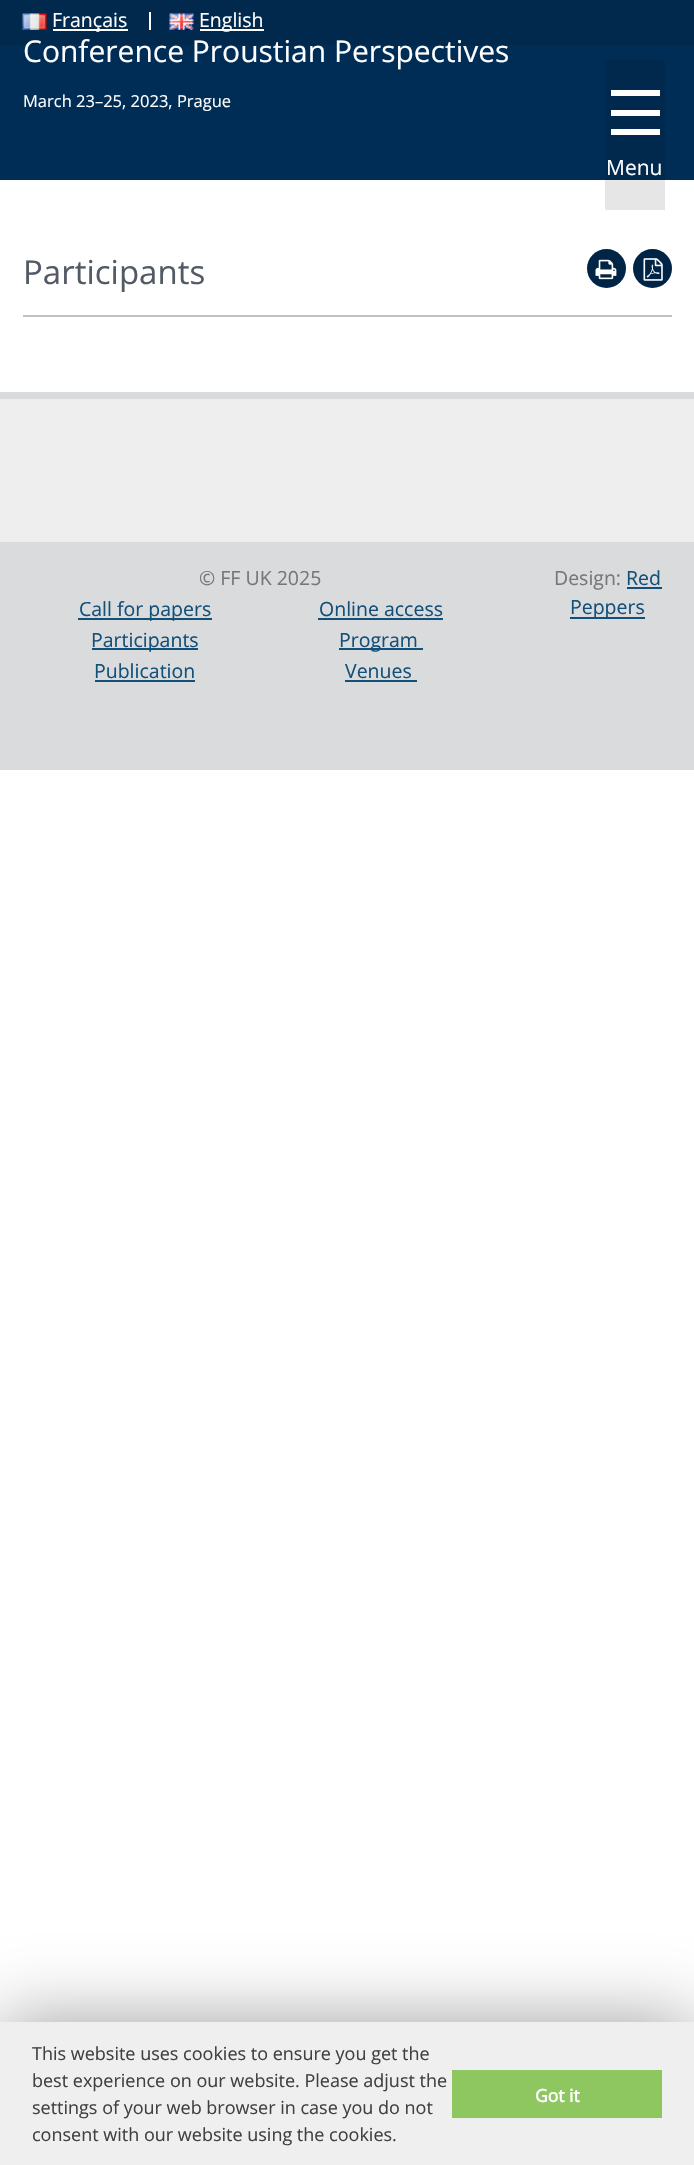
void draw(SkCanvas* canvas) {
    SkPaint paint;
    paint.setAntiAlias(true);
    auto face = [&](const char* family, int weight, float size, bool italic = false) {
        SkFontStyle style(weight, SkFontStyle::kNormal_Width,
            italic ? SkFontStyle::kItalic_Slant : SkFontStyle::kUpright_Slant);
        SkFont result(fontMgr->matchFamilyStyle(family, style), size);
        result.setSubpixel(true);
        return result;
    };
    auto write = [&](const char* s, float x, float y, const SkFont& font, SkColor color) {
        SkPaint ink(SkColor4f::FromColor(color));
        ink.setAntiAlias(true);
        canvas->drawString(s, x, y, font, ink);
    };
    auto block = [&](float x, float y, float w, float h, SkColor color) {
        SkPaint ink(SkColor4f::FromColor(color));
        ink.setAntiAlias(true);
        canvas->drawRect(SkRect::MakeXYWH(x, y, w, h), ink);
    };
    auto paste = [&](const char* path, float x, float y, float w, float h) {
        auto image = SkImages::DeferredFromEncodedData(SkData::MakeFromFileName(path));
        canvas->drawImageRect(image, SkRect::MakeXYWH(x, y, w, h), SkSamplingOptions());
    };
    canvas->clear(SK_ColorWHITE);
    block(605, 180, 60, 30, SkColorSetRGB(230, 230, 230));
    block(0, 0, 694, 180, SkColorSetRGB(0, 45, 86));
    block(0, 0, 694, 45, SkColorSetARGB(26, 0, 0, 0));
    paste("pic1.png", 22, 13, 25, 17);
    block(53, 29, 75, 2, SK_ColorWHITE);
    auto kFont1 = face("Open Sans", 400, 19.5f);
    write("Français", 52, 27, kFont1, SkColorSetRGB(254, 254, 255));
    block(149, 12, 2, 18, SK_ColorWHITE);
    paste("pic2.png", 169, 13, 25, 17);
    block(200, 29, 64, 2, SK_ColorWHITE);
    write("English", 199, 27, kFont1, SkColorSetRGB(254, 254, 255));
    block(605, 60, 60, 120, SkColorSetRGB(0, 41, 77));
    auto kFont2 = face("Open Sans", 400, 30);
    write("Conference Proustian Perspectives", 23, 62, kFont2, SkColorSetRGB(254, 254, 255));
    auto kFont3 = face("Open Sans", 400, 16.5f);
    write("March 23–25, 2023, Prague", 23, 107, kFont3, SkColorSetRGB(254, 254, 255));
    block(611, 90, 49, 6, SK_ColorWHITE);
    block(611, 110, 49, 6, SK_ColorWHITE);
    block(611, 129, 49, 6, SK_ColorWHITE);
    auto kFont4 = face("Open Sans", 400, 21);
    write("Menu", 606, 175, kFont4, SkColorSetRGB(254, 254, 255));
    block(23, 315, 649, 2, SkColorSetRGB(194, 194, 194));
    auto kFont5 = face("Open Sans", 400, 33);
    write("Participants", 23, 284, kFont5, SkColorSetRGB(82, 91, 101));
    paint.setColor(SkColorSetRGB(0, 36, 69));
    canvas->drawCircle(606.5f, 268.5f, 19.5f, paint);
    paste("pic3.png", 595, 259, 22, 21);
    canvas->drawCircle(652.5f, 268.5f, 19.5f, paint);
    paste("pic4.png", 643, 258, 20, 23);
    block(0, 399, 694, 143, SkColorSetRGB(238, 238, 238));
    block(0, 392, 694, 7, SkColorSetRGB(218, 219, 220));
    block(0, 542, 694, 228, SkColorSetRGB(218, 219, 220));
    write("© FF UK 2025", 199, 585, kFont1, SkColorSetRGB(118, 119, 121));
    block(78, 618, 134, 2, SkColorSetRGB(19, 80, 121));
    write("Call for papers", 79, 616, kFont1, SkColorSetRGB(19, 80, 121));
    write("Online access", 319, 616, kFont1, SkColorSetRGB(19, 80, 121));
    block(318, 618, 125, 2, SkColorSetRGB(19, 80, 121));
    block(92, 648, 106, 2, SkColorSetRGB(19, 80, 121));
    write("Participants", 91, 647, kFont1, SkColorSetRGB(19, 80, 121));
    block(339, 648, 84, 2, SkColorSetRGB(19, 80, 121));
    write("Program", 339, 647, kFont1, SkColorSetRGB(19, 80, 121));
    write("Publication", 94, 678, kFont1, SkColorSetRGB(19, 80, 121));
    block(95, 680, 100, 2, SkColorSetRGB(19, 80, 121));
    write("Venues", 345, 678, kFont1, SkColorSetRGB(19, 80, 121));
    block(345, 680, 72, 2, SkColorSetRGB(19, 80, 121));
    write("Design:", 554, 585, kFont1, SkColorSetRGB(118, 119, 121));
    write("Red", 626, 585, kFont1, SkColorSetRGB(19, 80, 121));
    block(627, 587, 35, 2, SkColorSetRGB(19, 80, 121));
    block(570, 617, 75, 2, SkColorSetRGB(19, 80, 121));
    write("Peppers", 570, 614, kFont1, SkColorSetRGB(19, 80, 121));
    paint.setColor(SkColorSetARGB(97, 0, 0, 0));
    paint.setMaskFilter(SkMaskFilter::MakeBlur(kNormal_SkBlurStyle, 37.5f));
    canvas->drawRect(SkRect::MakeXYWH(0, 2022, 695, 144), paint);
    paint.setMaskFilter(nullptr);
    block(0, 2022, 694, 143, SkColorSetRGB(239, 239, 239));
    auto kFont6 = face("Open Sans", 400, 18);
    write("This website uses cookies to ensure you get the", 32, 2060, kFont6, SkColorSetRGB(64, 64, 64));
    write("best experience on our website. Please adjust the", 32, 2087, kFont6, SkColorSetRGB(64, 64, 64));
    write("settings of your web browser in case you do not", 32, 2114, kFont6, SkColorSetRGB(64, 64, 64));
    write("consent with our website using the cookies.", 32, 2141, kFont6, SkColorSetRGB(64, 64, 64));
    block(452, 2070, 210, 48, SkColorSetRGB(142, 199, 96));
    auto kFont7 = face("Open Sans", 700, 17.5f);
    write("Got it", 535, 2102, kFont7, SkColorSetRGB(254, 254, 255));
}
